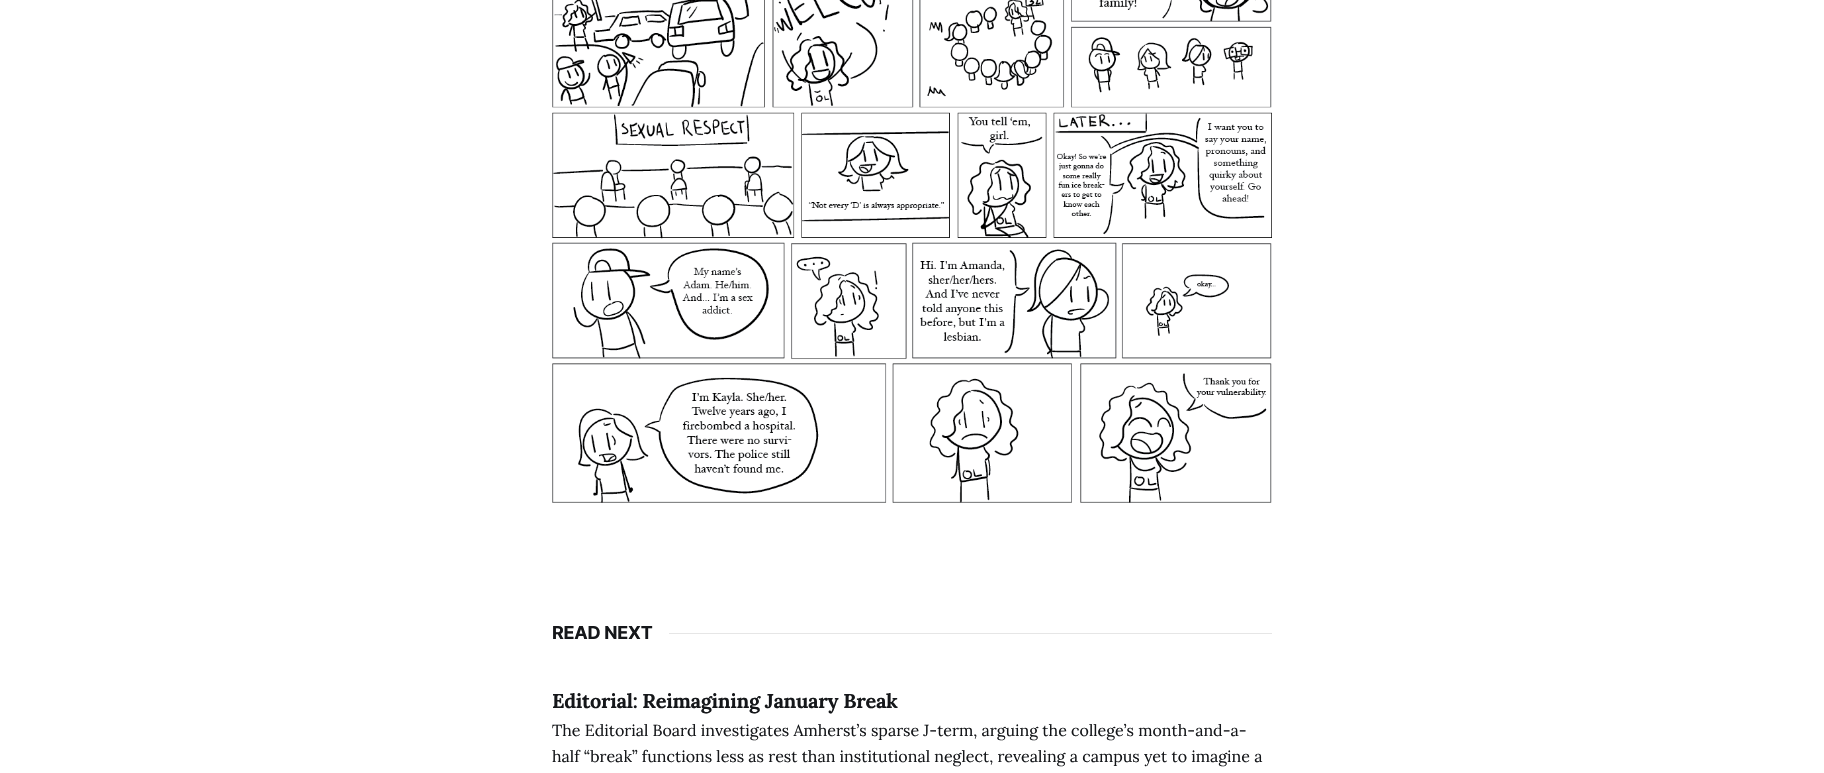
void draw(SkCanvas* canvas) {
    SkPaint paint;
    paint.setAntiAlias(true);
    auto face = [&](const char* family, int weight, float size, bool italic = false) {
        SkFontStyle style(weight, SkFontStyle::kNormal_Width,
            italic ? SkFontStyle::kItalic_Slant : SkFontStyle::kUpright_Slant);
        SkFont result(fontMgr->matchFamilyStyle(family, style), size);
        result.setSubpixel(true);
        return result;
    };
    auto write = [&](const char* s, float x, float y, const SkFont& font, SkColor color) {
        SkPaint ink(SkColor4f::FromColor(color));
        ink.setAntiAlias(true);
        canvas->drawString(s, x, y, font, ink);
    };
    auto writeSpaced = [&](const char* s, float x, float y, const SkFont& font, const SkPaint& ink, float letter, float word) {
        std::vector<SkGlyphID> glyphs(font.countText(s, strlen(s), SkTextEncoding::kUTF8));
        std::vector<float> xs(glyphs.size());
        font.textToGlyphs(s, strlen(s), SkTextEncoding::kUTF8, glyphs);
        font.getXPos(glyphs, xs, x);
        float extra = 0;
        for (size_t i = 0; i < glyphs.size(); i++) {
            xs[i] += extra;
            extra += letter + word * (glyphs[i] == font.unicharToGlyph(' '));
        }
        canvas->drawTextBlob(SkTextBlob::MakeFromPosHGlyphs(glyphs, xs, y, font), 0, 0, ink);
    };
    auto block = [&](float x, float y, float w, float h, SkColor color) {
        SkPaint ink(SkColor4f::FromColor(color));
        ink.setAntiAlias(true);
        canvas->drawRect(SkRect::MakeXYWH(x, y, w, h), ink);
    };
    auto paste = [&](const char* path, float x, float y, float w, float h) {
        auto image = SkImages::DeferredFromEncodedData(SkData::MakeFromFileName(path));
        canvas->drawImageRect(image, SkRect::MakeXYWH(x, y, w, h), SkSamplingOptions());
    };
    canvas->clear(SK_ColorWHITE);
    paste("pic1.png", 552, 0, 720, 503);
    auto kFont1 = face("Inter", 700, 18);
    paint.setColor(SkColorSetRGB(21, 23, 26));
    writeSpaced("READ NEXT", 552, 639, kFont1, paint, -0.25f, 0);
    block(669, 633, 603, 1, SkColorSetRGB(230, 230, 230));
    auto kFont2 = face("Lora", 700, 20);
    writeSpaced("Editorial: Reimagining January Break", 552, 708, kFont2, paint, -0.3f, 0);
    auto kFont3 = face("Lora", 400, 16);
    write("The Editorial Board investigates Amherst’s sparse J-term, arguing the college’s month-and-a-", 552, 736, kFont3, SkColorSetRGB(21, 23, 26));
    write("half “break” functions less as rest than institutional neglect, revealing a campus yet to imagine a", 552, 762, kFont3, SkColorSetRGB(21, 23, 26));
}
